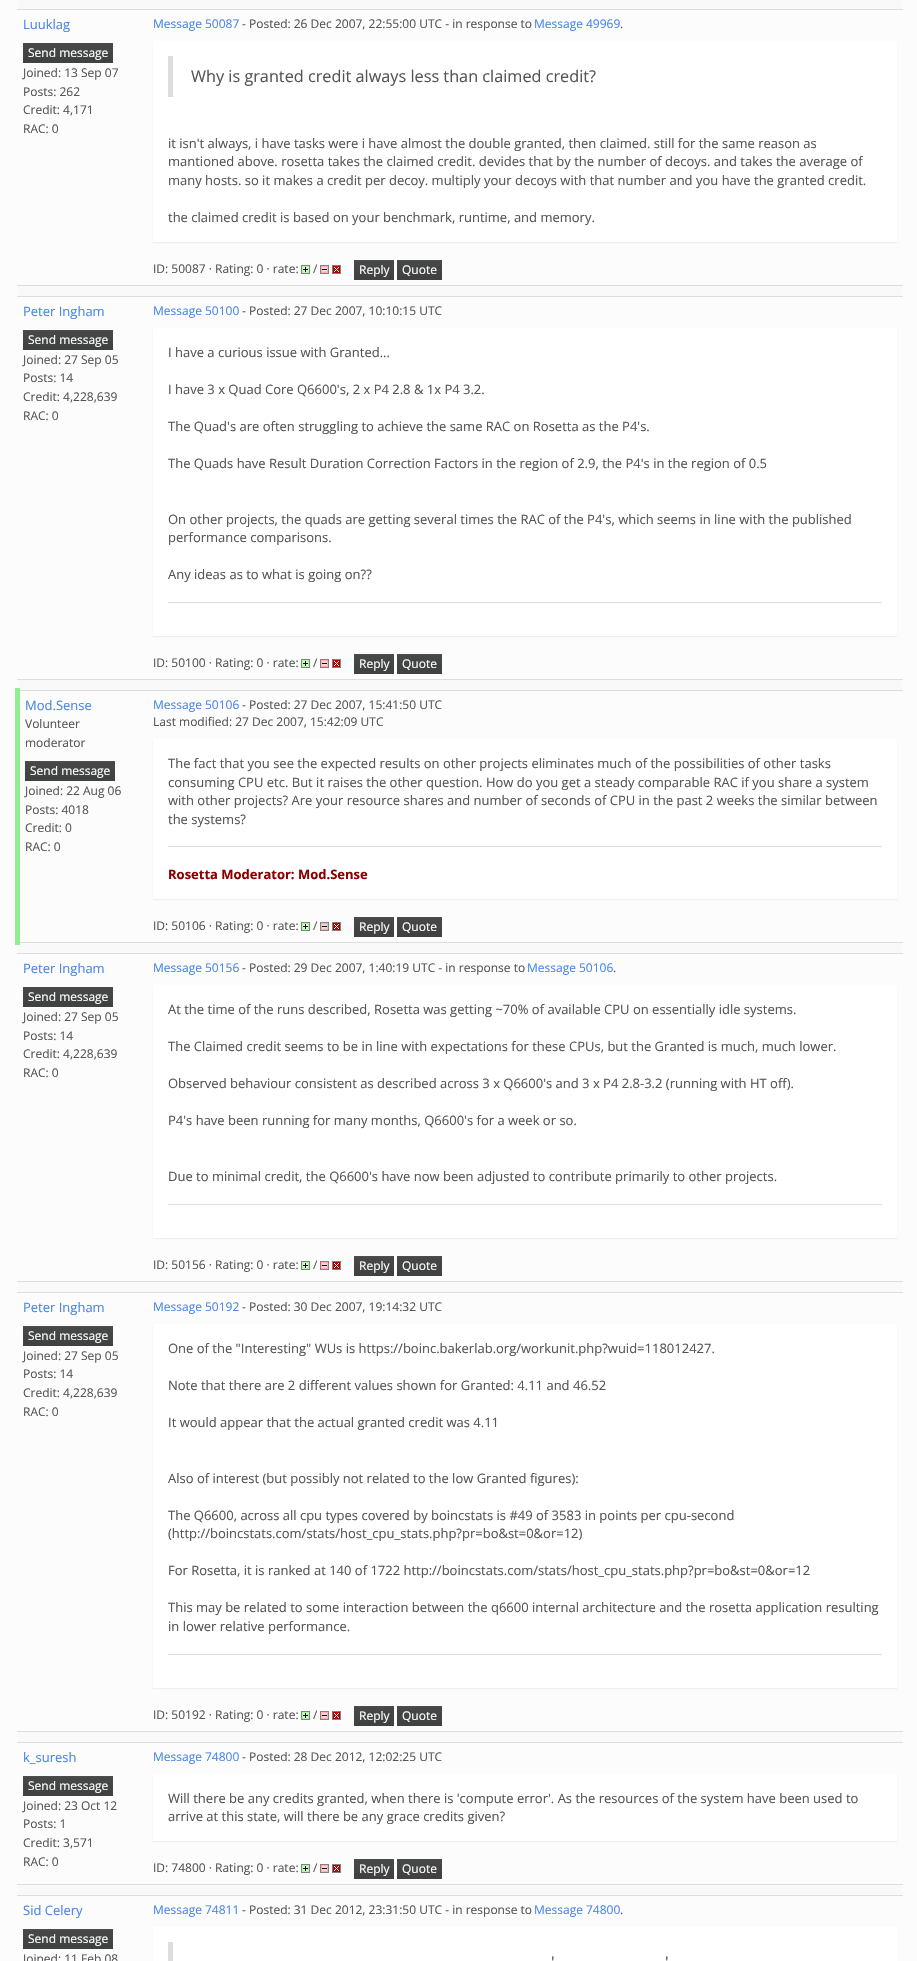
void draw(SkCanvas* canvas) {
    SkPaint paint;
    paint.setAntiAlias(true);
    auto face = [&](const char* family, int weight, float size, bool italic = false) {
        SkFontStyle style(weight, SkFontStyle::kNormal_Width,
            italic ? SkFontStyle::kItalic_Slant : SkFontStyle::kUpright_Slant);
        SkFont result(fontMgr->matchFamilyStyle(family, style), size);
        result.setSubpixel(true);
        return result;
    };
    auto write = [&](const char* s, float x, float y, const SkFont& font, SkColor color) {
        SkPaint ink(SkColor4f::FromColor(color));
        ink.setAntiAlias(true);
        canvas->drawString(s, x, y, font, ink);
    };
    auto block = [&](float x, float y, float w, float h, SkColor color) {
        SkPaint ink(SkColor4f::FromColor(color));
        ink.setAntiAlias(true);
        canvas->drawRect(SkRect::MakeXYWH(x, y, w, h), ink);
    };
    auto paste = [&](const char* path, float x, float y, float w, float h) {
        auto image = SkImages::DeferredFromEncodedData(SkData::MakeFromFileName(path));
        canvas->drawImageRect(image, SkRect::MakeXYWH(x, y, w, h), SkSamplingOptions());
    };
    canvas->clear(SkColorSetRGB(252, 252, 252));
    block(18, 0, 884, 9, SkColorSetRGB(249, 249, 249));
    auto kFont1 = face("Open Sans", 400, 13);
    write("Luuklag", 23, 29, kFont1, SkColorSetRGB(74, 134, 232));
    {
        const SkColor colors[] = {SkColorSetRGB(79, 81, 81), SkColorSetRGB(71, 73, 73), SkColorSetRGB(63, 65, 65)};
        const float stops[] = {0, 0.06f, 1};
        const SkPoint ends[] = {{68, 43}, {68, 63}};
        paint.setShader(SkGradientShader::MakeLinear(ends, colors, stops, 3, SkTileMode::kClamp));
        paint.setAlpha(255);
    }
    canvas->drawRect(SkRect::MakeXYWH(23, 43, 90, 20), paint);
    auto kFont2 = face("Open Sans", 400, 12);
    write("Send message", 28, 57, kFont2, SK_ColorWHITE);
    write("Joined: 13 Sep 07", 23, 77, kFont2, SkColorSetRGB(85, 85, 85));
    write("Posts: 262", 23, 96, kFont2, SkColorSetRGB(85, 85, 85));
    write("Credit: 4,171", 23, 114, kFont2, SkColorSetRGB(85, 85, 85));
    write("RAC: 0", 23, 133, kFont2, SkColorSetRGB(85, 85, 85));
    block(17, 9, 886, 1, SkColorSetRGB(221, 221, 221));
    write("Message 50087", 153, 28, kFont2, SkColorSetRGB(74, 134, 232));
    write("- Posted: 26 Dec 2007, 22:55:00 UTC - in response to", 242, 28, kFont2, SkColorSetRGB(85, 85, 85));
    write("Message 49969", 534, 28, kFont2, SkColorSetRGB(74, 134, 232));
    write(".", 620, 28, kFont2, SkColorSetRGB(85, 85, 85));
    paint.setShader(nullptr);
    paint.setColor(SkColorSetARGB(13, 0, 0, 0));
    paint.setMaskFilter(SkMaskFilter::MakeBlur(kNormal_SkBlurStyle, 0.5f));
    canvas->drawRect(SkRect::MakeXYWH(153, 42, 744, 201), paint);
    paint.setMaskFilter(nullptr);
    block(153, 41, 744, 201, SK_ColorWHITE);
    block(168, 56, 5, 41, SkColorSetRGB(221, 221, 221));
    auto kFont3 = face("Open Sans", 400, 16.25f);
    write("Why is granted credit always less than claimed credit?", 191, 82, kFont3, SkColorSetRGB(85, 85, 85));
    write("it isn't always, i have tasks were i have almost the double granted, then claimed. still for the same reason as", 168, 148, kFont1, SkColorSetRGB(85, 85, 85));
    write("mantioned above. rosetta takes the claimed credit. devides that by the number of decoys. and takes the average of", 168, 166, kFont1, SkColorSetRGB(85, 85, 85));
    write("many hosts. so it makes a credit per decoy. multiply your decoys with that number and you have the granted credit.", 168, 185, kFont1, SkColorSetRGB(85, 85, 85));
    write("the claimed credit is based on your benchmark, runtime, and memory.", 168, 222, kFont1, SkColorSetRGB(85, 85, 85));
    write("ID: 50087 · Rating: 0 · rate:", 153, 273, kFont2, SkColorSetRGB(85, 85, 85));
    paste("pic1.png", 301, 265, 9, 9);
    write("/", 313, 273, kFont2, SkColorSetRGB(85, 85, 85));
    paste("pic2.png", 320, 265, 9, 9);
    paste("pic3.png", 332, 265, 9, 9);
    {
        const SkColor colors[] = {SkColorSetRGB(79, 81, 81), SkColorSetRGB(71, 73, 73), SkColorSetRGB(63, 65, 65)};
        const float stops[] = {0, 0.06f, 1};
        const SkPoint ends[] = {{374, 260}, {374, 280}};
        paint.setShader(SkGradientShader::MakeLinear(ends, colors, stops, 3, SkTileMode::kClamp));
        paint.setAlpha(255);
    }
    canvas->drawRect(SkRect::MakeXYWH(354, 260, 40, 20), paint);
    write("Reply", 359, 274, kFont2, SK_ColorWHITE);
    {
        const SkColor colors[] = {SkColorSetRGB(79, 81, 81), SkColorSetRGB(71, 73, 73), SkColorSetRGB(63, 65, 65)};
        const float stops[] = {0, 0.06f, 1};
        const SkPoint ends[] = {{420, 260}, {420, 280}};
        paint.setShader(SkGradientShader::MakeLinear(ends, colors, stops, 3, SkTileMode::kClamp));
        paint.setAlpha(255);
    }
    canvas->drawRect(SkRect::MakeXYWH(397, 260, 45, 20), paint);
    write("Quote", 402, 274, kFont2, SK_ColorWHITE);
    block(18, 286, 884, 10, SkColorSetRGB(249, 249, 249));
    block(17, 285, 886, 1, SkColorSetRGB(221, 221, 221));
    write("Peter Ingham", 23, 316, kFont1, SkColorSetRGB(74, 134, 232));
    {
        const SkColor colors[] = {SkColorSetRGB(79, 81, 81), SkColorSetRGB(71, 73, 73), SkColorSetRGB(63, 65, 65)};
        const float stops[] = {0, 0.06f, 1};
        const SkPoint ends[] = {{68, 330}, {68, 350}};
        paint.setShader(SkGradientShader::MakeLinear(ends, colors, stops, 3, SkTileMode::kClamp));
        paint.setAlpha(255);
    }
    canvas->drawRect(SkRect::MakeXYWH(23, 330, 90, 20), paint);
    write("Send message", 28, 344, kFont2, SK_ColorWHITE);
    write("Joined: 27 Sep 05", 23, 364, kFont2, SkColorSetRGB(85, 85, 85));
    write("Posts: 14", 23, 382, kFont2, SkColorSetRGB(85, 85, 85));
    write("Credit: 4,228,639", 23, 401, kFont2, SkColorSetRGB(85, 85, 85));
    write("RAC: 0", 23, 420, kFont2, SkColorSetRGB(85, 85, 85));
    block(17, 296, 886, 1, SkColorSetRGB(221, 221, 221));
    write("Message 50100", 153, 315, kFont2, SkColorSetRGB(74, 134, 232));
    write("- Posted: 27 Dec 2007, 10:10:15 UTC", 242, 315, kFont2, SkColorSetRGB(85, 85, 85));
    paint.setShader(nullptr);
    paint.setColor(SkColorSetARGB(13, 0, 0, 0));
    paint.setMaskFilter(SkMaskFilter::MakeBlur(kNormal_SkBlurStyle, 0.5f));
    canvas->drawRect(SkRect::MakeXYWH(153, 329, 744, 308), paint);
    paint.setMaskFilter(nullptr);
    block(153, 328, 744, 308, SK_ColorWHITE);
    write("I have a curious issue with Granted...", 168, 357, kFont1, SkColorSetRGB(85, 85, 85));
    write("I have 3 x Quad Core Q6600's, 2 x P4 2.8 & 1x P4 3.2.", 168, 394, kFont1, SkColorSetRGB(85, 85, 85));
    write("The Quad's are often struggling to achieve the same RAC on Rosetta as the P4's.", 168, 431, kFont1, SkColorSetRGB(85, 85, 85));
    write("The Quads have Result Duration Correction Factors in the region of 2.9, the P4's in the region of 0.5", 168, 468, kFont1, SkColorSetRGB(85, 85, 85));
    write("On other projects, the quads are getting several times the RAC of the P4's, which seems in line with the published", 168, 524, kFont1, SkColorSetRGB(85, 85, 85));
    write("performance comparisons.", 168, 542, kFont1, SkColorSetRGB(85, 85, 85));
    write("Any ideas as to what is going on?\077", 168, 579, kFont1, SkColorSetRGB(85, 85, 85));
    block(168, 602, 714, 1, SkColorSetRGB(221, 221, 221));
    write("ID: 50100 · Rating: 0 · rate:", 153, 667, kFont2, SkColorSetRGB(85, 85, 85));
    paste("pic1.png", 301, 659, 9, 9);
    write("/", 313, 667, kFont2, SkColorSetRGB(85, 85, 85));
    paste("pic2.png", 320, 659, 9, 9);
    paste("pic3.png", 332, 659, 9, 9);
    {
        const SkColor colors[] = {SkColorSetRGB(79, 81, 81), SkColorSetRGB(71, 73, 73), SkColorSetRGB(63, 65, 65)};
        const float stops[] = {0, 0.06f, 1};
        const SkPoint ends[] = {{374, 654}, {374, 674}};
        paint.setShader(SkGradientShader::MakeLinear(ends, colors, stops, 3, SkTileMode::kClamp));
        paint.setAlpha(255);
    }
    canvas->drawRect(SkRect::MakeXYWH(354, 654, 40, 20), paint);
    write("Reply", 359, 668, kFont2, SK_ColorWHITE);
    {
        const SkColor colors[] = {SkColorSetRGB(79, 81, 81), SkColorSetRGB(71, 73, 73), SkColorSetRGB(63, 65, 65)};
        const float stops[] = {0, 0.06f, 1};
        const SkPoint ends[] = {{420, 654}, {420, 674}};
        paint.setShader(SkGradientShader::MakeLinear(ends, colors, stops, 3, SkTileMode::kClamp));
        paint.setAlpha(255);
    }
    canvas->drawRect(SkRect::MakeXYWH(397, 654, 45, 20), paint);
    write("Quote", 402, 668, kFont2, SK_ColorWHITE);
    block(18, 680, 884, 10, SkColorSetRGB(249, 249, 249));
    block(17, 679, 886, 1, SkColorSetRGB(221, 221, 221));
    block(17, 690, 886, 1, SkColorSetRGB(221, 221, 221));
    block(18, 943, 884, 10, SkColorSetRGB(249, 249, 249));
    block(17, 942, 886, 1, SkColorSetRGB(221, 221, 221));
    block(15, 688, 5, 257, SkColorSetRGB(144, 238, 144));
    write("Mod.Sense", 25, 710, kFont1, SkColorSetRGB(74, 134, 232));
    write("Volunteer", 25, 728, kFont2, SkColorSetRGB(85, 85, 85));
    write("moderator", 25, 747, kFont2, SkColorSetRGB(85, 85, 85));
    {
        const SkColor colors[] = {SkColorSetRGB(79, 81, 81), SkColorSetRGB(71, 73, 73), SkColorSetRGB(63, 65, 65)};
        const float stops[] = {0, 0.06f, 1};
        const SkPoint ends[] = {{70, 761}, {70, 781}};
        paint.setShader(SkGradientShader::MakeLinear(ends, colors, stops, 3, SkTileMode::kClamp));
        paint.setAlpha(255);
    }
    canvas->drawRect(SkRect::MakeXYWH(25, 761, 90, 20), paint);
    write("Send message", 30, 775, kFont2, SK_ColorWHITE);
    write("Joined: 22 Aug 06", 25, 795, kFont2, SkColorSetRGB(85, 85, 85));
    write("Posts: 4018", 25, 814, kFont2, SkColorSetRGB(85, 85, 85));
    write("Credit: 0", 25, 832, kFont2, SkColorSetRGB(85, 85, 85));
    write("RAC: 0", 25, 851, kFont2, SkColorSetRGB(85, 85, 85));
    write("Message 50106", 153, 709, kFont2, SkColorSetRGB(74, 134, 232));
    write("- Posted: 27 Dec 2007, 15:41:50 UTC", 242, 709, kFont2, SkColorSetRGB(85, 85, 85));
    write("Last modified: 27 Dec 2007, 15:42:09 UTC", 153, 726, kFont2, SkColorSetRGB(85, 85, 85));
    paint.setShader(nullptr);
    paint.setColor(SkColorSetARGB(13, 0, 0, 0));
    paint.setMaskFilter(SkMaskFilter::MakeBlur(kNormal_SkBlurStyle, 0.5f));
    canvas->drawRect(SkRect::MakeXYWH(153, 740, 744, 160), paint);
    paint.setMaskFilter(nullptr);
    block(153, 739, 744, 160, SK_ColorWHITE);
    write("The fact that you see the expected results on other projects eliminates much of the possibilities of other tasks", 168, 768, kFont1, SkColorSetRGB(85, 85, 85));
    write("consuming CPU etc. But it raises the other question. How do you get a steady comparable RAC if you share a system", 168, 787, kFont1, SkColorSetRGB(85, 85, 85));
    write("with other projects? Are your resource shares and number of seconds of CPU in the past 2 weeks the similar between", 168, 805, kFont1, SkColorSetRGB(85, 85, 85));
    write("the systems?", 168, 824, kFont1, SkColorSetRGB(85, 85, 85));
    block(168, 846, 714, 1, SkColorSetRGB(221, 221, 221));
    auto kFont4 = face("Open Sans", 700, 13);
    write("Rosetta Moderator: Mod.Sense", 168, 879, kFont4, SkColorSetRGB(139, 0, 0));
    write("ID: 50106 · Rating: 0 · rate:", 153, 930, kFont2, SkColorSetRGB(85, 85, 85));
    paste("pic1.png", 301, 922, 9, 9);
    write("/", 313, 930, kFont2, SkColorSetRGB(85, 85, 85));
    paste("pic2.png", 320, 922, 9, 9);
    paste("pic3.png", 332, 922, 9, 9);
    {
        const SkColor colors[] = {SkColorSetRGB(79, 81, 81), SkColorSetRGB(71, 73, 73), SkColorSetRGB(63, 65, 65)};
        const float stops[] = {0, 0.06f, 1};
        const SkPoint ends[] = {{374, 917}, {374, 937}};
        paint.setShader(SkGradientShader::MakeLinear(ends, colors, stops, 3, SkTileMode::kClamp));
        paint.setAlpha(255);
    }
    canvas->drawRect(SkRect::MakeXYWH(354, 917, 40, 20), paint);
    write("Reply", 359, 931, kFont2, SK_ColorWHITE);
    {
        const SkColor colors[] = {SkColorSetRGB(79, 81, 81), SkColorSetRGB(71, 73, 73), SkColorSetRGB(63, 65, 65)};
        const float stops[] = {0, 0.06f, 1};
        const SkPoint ends[] = {{420, 917}, {420, 937}};
        paint.setShader(SkGradientShader::MakeLinear(ends, colors, stops, 3, SkTileMode::kClamp));
        paint.setAlpha(255);
    }
    canvas->drawRect(SkRect::MakeXYWH(397, 917, 45, 20), paint);
    write("Quote", 402, 931, kFont2, SK_ColorWHITE);
    write("Peter Ingham", 23, 973, kFont1, SkColorSetRGB(74, 134, 232));
    {
        const SkColor colors[] = {SkColorSetRGB(79, 81, 81), SkColorSetRGB(71, 73, 73), SkColorSetRGB(63, 65, 65)};
        const float stops[] = {0, 0.06f, 1};
        const SkPoint ends[] = {{68, 987}, {68, 1007}};
        paint.setShader(SkGradientShader::MakeLinear(ends, colors, stops, 3, SkTileMode::kClamp));
        paint.setAlpha(255);
    }
    canvas->drawRect(SkRect::MakeXYWH(23, 987, 90, 20), paint);
    write("Send message", 28, 1001, kFont2, SK_ColorWHITE);
    write("Joined: 27 Sep 05", 23, 1021, kFont2, SkColorSetRGB(85, 85, 85));
    write("Posts: 14", 23, 1040, kFont2, SkColorSetRGB(85, 85, 85));
    write("Credit: 4,228,639", 23, 1058, kFont2, SkColorSetRGB(85, 85, 85));
    write("RAC: 0", 23, 1077, kFont2, SkColorSetRGB(85, 85, 85));
    block(17, 953, 886, 1, SkColorSetRGB(221, 221, 221));
    write("Message 50156", 153, 972, kFont2, SkColorSetRGB(74, 134, 232));
    write("- Posted: 29 Dec 2007, 1:40:19 UTC - in response to", 242, 972, kFont2, SkColorSetRGB(85, 85, 85));
    write("Message 50106", 527, 972, kFont2, SkColorSetRGB(74, 134, 232));
    write(".", 613, 972, kFont2, SkColorSetRGB(85, 85, 85));
    paint.setShader(nullptr);
    paint.setColor(SkColorSetARGB(13, 0, 0, 0));
    paint.setMaskFilter(SkMaskFilter::MakeBlur(kNormal_SkBlurStyle, 0.5f));
    canvas->drawRect(SkRect::MakeXYWH(153, 986, 744, 253), paint);
    paint.setMaskFilter(nullptr);
    block(153, 985, 744, 253, SK_ColorWHITE);
    write("At the time of the runs described, Rosetta was getting ~70% of available CPU on essentially idle systems.", 168, 1014, kFont1, SkColorSetRGB(85, 85, 85));
    write("The Claimed credit seems to be in line with expectations for these CPUs, but the Granted is much, much lower.", 168, 1051, kFont1, SkColorSetRGB(85, 85, 85));
    write("Observed behaviour consistent as described across 3 x Q6600's and 3 x P4 2.8-3.2 (running with HT off).", 168, 1088, kFont1, SkColorSetRGB(85, 85, 85));
    write("P4's have been running for many months, Q6600's for a week or so.", 168, 1125, kFont1, SkColorSetRGB(85, 85, 85));
    write("Due to minimal credit, the Q6600's have now been adjusted to contribute primarily to other projects.", 168, 1181, kFont1, SkColorSetRGB(85, 85, 85));
    block(168, 1204, 714, 1, SkColorSetRGB(221, 221, 221));
    write("ID: 50156 · Rating: 0 · rate:", 153, 1269, kFont2, SkColorSetRGB(85, 85, 85));
    paste("pic1.png", 301, 1261, 9, 9);
    write("/", 313, 1269, kFont2, SkColorSetRGB(85, 85, 85));
    paste("pic2.png", 320, 1261, 9, 9);
    paste("pic3.png", 332, 1261, 9, 9);
    {
        const SkColor colors[] = {SkColorSetRGB(79, 81, 81), SkColorSetRGB(71, 73, 73), SkColorSetRGB(63, 65, 65)};
        const float stops[] = {0, 0.06f, 1};
        const SkPoint ends[] = {{374, 1256}, {374, 1276}};
        paint.setShader(SkGradientShader::MakeLinear(ends, colors, stops, 3, SkTileMode::kClamp));
        paint.setAlpha(255);
    }
    canvas->drawRect(SkRect::MakeXYWH(354, 1256, 40, 20), paint);
    write("Reply", 359, 1270, kFont2, SK_ColorWHITE);
    {
        const SkColor colors[] = {SkColorSetRGB(79, 81, 81), SkColorSetRGB(71, 73, 73), SkColorSetRGB(63, 65, 65)};
        const float stops[] = {0, 0.06f, 1};
        const SkPoint ends[] = {{420, 1256}, {420, 1276}};
        paint.setShader(SkGradientShader::MakeLinear(ends, colors, stops, 3, SkTileMode::kClamp));
        paint.setAlpha(255);
    }
    canvas->drawRect(SkRect::MakeXYWH(397, 1256, 45, 20), paint);
    write("Quote", 402, 1270, kFont2, SK_ColorWHITE);
    block(18, 1282, 884, 10, SkColorSetRGB(249, 249, 249));
    block(17, 1281, 886, 1, SkColorSetRGB(221, 221, 221));
    write("Peter Ingham", 23, 1312, kFont1, SkColorSetRGB(74, 134, 232));
    {
        const SkColor colors[] = {SkColorSetRGB(79, 81, 81), SkColorSetRGB(71, 73, 73), SkColorSetRGB(63, 65, 65)};
        const float stops[] = {0, 0.06f, 1};
        const SkPoint ends[] = {{68, 1326}, {68, 1346}};
        paint.setShader(SkGradientShader::MakeLinear(ends, colors, stops, 3, SkTileMode::kClamp));
        paint.setAlpha(255);
    }
    canvas->drawRect(SkRect::MakeXYWH(23, 1326, 90, 20), paint);
    write("Send message", 28, 1340, kFont2, SK_ColorWHITE);
    write("Joined: 27 Sep 05", 23, 1360, kFont2, SkColorSetRGB(85, 85, 85));
    write("Posts: 14", 23, 1378, kFont2, SkColorSetRGB(85, 85, 85));
    write("Credit: 4,228,639", 23, 1397, kFont2, SkColorSetRGB(85, 85, 85));
    write("RAC: 0", 23, 1416, kFont2, SkColorSetRGB(85, 85, 85));
    block(17, 1292, 886, 1, SkColorSetRGB(221, 221, 221));
    write("Message 50192", 153, 1311, kFont2, SkColorSetRGB(74, 134, 232));
    write("- Posted: 30 Dec 2007, 19:14:32 UTC", 242, 1311, kFont2, SkColorSetRGB(85, 85, 85));
    paint.setShader(nullptr);
    paint.setColor(SkColorSetARGB(13, 0, 0, 0));
    paint.setMaskFilter(SkMaskFilter::MakeBlur(kNormal_SkBlurStyle, 0.5f));
    canvas->drawRect(SkRect::MakeXYWH(153, 1325, 744, 364), paint);
    paint.setMaskFilter(nullptr);
    block(153, 1324, 744, 364, SK_ColorWHITE);
    write("One of the \"Interesting\" WUs is https://boinc.bakerlab.org/workunit.php?wuid=118012427.", 168, 1353, kFont1, SkColorSetRGB(85, 85, 85));
    write("Note that there are 2 different values shown for Granted: 4.11 and 46.52", 168, 1390, kFont1, SkColorSetRGB(85, 85, 85));
    write("It would appear that the actual granted credit was 4.11", 168, 1427, kFont1, SkColorSetRGB(85, 85, 85));
    write("Also of interest (but possibly not related to the low Granted figures):", 168, 1483, kFont1, SkColorSetRGB(85, 85, 85));
    write("The Q6600, across all cpu types covered by boincstats is #49 of 3583 in points per cpu-second", 168, 1520, kFont1, SkColorSetRGB(85, 85, 85));
    write("(http://boincstats.com/stats/host_cpu_stats.php?pr=bo&st=0&or=12)", 168, 1538, kFont1, SkColorSetRGB(85, 85, 85));
    write("For Rosetta, it is ranked at 140 of 1722 http://boincstats.com/stats/host_cpu_stats.php?pr=bo&st=0&or=12", 168, 1575, kFont1, SkColorSetRGB(85, 85, 85));
    write("This may be related to some interaction between the q6600 internal architecture and the rosetta application resulting", 168, 1612, kFont1, SkColorSetRGB(85, 85, 85));
    write("in lower relative performance.", 168, 1631, kFont1, SkColorSetRGB(85, 85, 85));
    block(168, 1654, 714, 1, SkColorSetRGB(221, 221, 221));
    write("ID: 50192 · Rating: 0 · rate:", 153, 1719, kFont2, SkColorSetRGB(85, 85, 85));
    paste("pic1.png", 301, 1711, 9, 9);
    write("/", 313, 1719, kFont2, SkColorSetRGB(85, 85, 85));
    paste("pic2.png", 320, 1711, 9, 9);
    paste("pic3.png", 332, 1711, 9, 9);
    {
        const SkColor colors[] = {SkColorSetRGB(79, 81, 81), SkColorSetRGB(71, 73, 73), SkColorSetRGB(63, 65, 65)};
        const float stops[] = {0, 0.06f, 1};
        const SkPoint ends[] = {{374, 1706}, {374, 1726}};
        paint.setShader(SkGradientShader::MakeLinear(ends, colors, stops, 3, SkTileMode::kClamp));
        paint.setAlpha(255);
    }
    canvas->drawRect(SkRect::MakeXYWH(354, 1706, 40, 20), paint);
    write("Reply", 359, 1720, kFont2, SK_ColorWHITE);
    {
        const SkColor colors[] = {SkColorSetRGB(79, 81, 81), SkColorSetRGB(71, 73, 73), SkColorSetRGB(63, 65, 65)};
        const float stops[] = {0, 0.06f, 1};
        const SkPoint ends[] = {{420, 1706}, {420, 1726}};
        paint.setShader(SkGradientShader::MakeLinear(ends, colors, stops, 3, SkTileMode::kClamp));
        paint.setAlpha(255);
    }
    canvas->drawRect(SkRect::MakeXYWH(397, 1706, 45, 20), paint);
    write("Quote", 402, 1720, kFont2, SK_ColorWHITE);
    block(18, 1732, 884, 10, SkColorSetRGB(249, 249, 249));
    block(17, 1731, 886, 1, SkColorSetRGB(221, 221, 221));
    write("k_suresh", 23, 1762, kFont1, SkColorSetRGB(74, 134, 232));
    {
        const SkColor colors[] = {SkColorSetRGB(79, 81, 81), SkColorSetRGB(71, 73, 73), SkColorSetRGB(63, 65, 65)};
        const float stops[] = {0, 0.06f, 1};
        const SkPoint ends[] = {{68, 1776}, {68, 1796}};
        paint.setShader(SkGradientShader::MakeLinear(ends, colors, stops, 3, SkTileMode::kClamp));
        paint.setAlpha(255);
    }
    canvas->drawRect(SkRect::MakeXYWH(23, 1776, 90, 20), paint);
    write("Send message", 28, 1790, kFont2, SK_ColorWHITE);
    write("Joined: 23 Oct 12", 23, 1810, kFont2, SkColorSetRGB(85, 85, 85));
    write("Posts: 1", 23, 1828, kFont2, SkColorSetRGB(85, 85, 85));
    write("Credit: 3,571", 23, 1847, kFont2, SkColorSetRGB(85, 85, 85));
    write("RAC: 0", 23, 1866, kFont2, SkColorSetRGB(85, 85, 85));
    block(17, 1742, 886, 1, SkColorSetRGB(221, 221, 221));
    write("Message 74800", 153, 1761, kFont2, SkColorSetRGB(74, 134, 232));
    write("- Posted: 28 Dec 2012, 12:02:25 UTC", 242, 1761, kFont2, SkColorSetRGB(85, 85, 85));
    paint.setShader(nullptr);
    paint.setColor(SkColorSetARGB(13, 0, 0, 0));
    paint.setMaskFilter(SkMaskFilter::MakeBlur(kNormal_SkBlurStyle, 0.5f));
    canvas->drawRect(SkRect::MakeXYWH(153, 1775, 744, 67), paint);
    paint.setMaskFilter(nullptr);
    block(153, 1774, 744, 67, SK_ColorWHITE);
    write("Will there be any credits granted, when there is 'compute error'. As the resources of the system have been used to", 168, 1803, kFont1, SkColorSetRGB(85, 85, 85));
    write("arrive at this state, will there be any grace credits given?", 168, 1821, kFont1, SkColorSetRGB(85, 85, 85));
    write("ID: 74800 · Rating: 0 · rate:", 153, 1872, kFont2, SkColorSetRGB(85, 85, 85));
    paste("pic1.png", 301, 1864, 9, 9);
    write("/", 313, 1872, kFont2, SkColorSetRGB(85, 85, 85));
    paste("pic2.png", 320, 1864, 9, 9);
    paste("pic3.png", 332, 1864, 9, 9);
    {
        const SkColor colors[] = {SkColorSetRGB(79, 81, 81), SkColorSetRGB(71, 73, 73), SkColorSetRGB(63, 65, 65)};
        const float stops[] = {0, 0.06f, 1};
        const SkPoint ends[] = {{374, 1859}, {374, 1879}};
        paint.setShader(SkGradientShader::MakeLinear(ends, colors, stops, 3, SkTileMode::kClamp));
        paint.setAlpha(255);
    }
    canvas->drawRect(SkRect::MakeXYWH(354, 1859, 40, 20), paint);
    write("Reply", 359, 1873, kFont2, SK_ColorWHITE);
    {
        const SkColor colors[] = {SkColorSetRGB(79, 81, 81), SkColorSetRGB(71, 73, 73), SkColorSetRGB(63, 65, 65)};
        const float stops[] = {0, 0.06f, 1};
        const SkPoint ends[] = {{420, 1859}, {420, 1879}};
        paint.setShader(SkGradientShader::MakeLinear(ends, colors, stops, 3, SkTileMode::kClamp));
        paint.setAlpha(255);
    }
    canvas->drawRect(SkRect::MakeXYWH(397, 1859, 45, 20), paint);
    write("Quote", 402, 1873, kFont2, SK_ColorWHITE);
    block(18, 1885, 884, 10, SkColorSetRGB(249, 249, 249));
    block(17, 1884, 886, 1, SkColorSetRGB(221, 221, 221));
    write("Sid Celery", 23, 1915, kFont1, SkColorSetRGB(74, 134, 232));
    {
        const SkColor colors[] = {SkColorSetRGB(79, 81, 81), SkColorSetRGB(71, 73, 73), SkColorSetRGB(63, 65, 65)};
        const float stops[] = {0, 0.06f, 1};
        const SkPoint ends[] = {{68, 1929}, {68, 1949}};
        paint.setShader(SkGradientShader::MakeLinear(ends, colors, stops, 3, SkTileMode::kClamp));
        paint.setAlpha(255);
    }
    canvas->drawRect(SkRect::MakeXYWH(23, 1929, 90, 20), paint);
    write("Send message", 28, 1943, kFont2, SK_ColorWHITE);
    write("Joined: 11 Feb 08", 23, 1963, kFont2, SkColorSetRGB(85, 85, 85));
    block(17, 1895, 886, 1, SkColorSetRGB(221, 221, 221));
    write("Message 74811", 153, 1914, kFont2, SkColorSetRGB(74, 134, 232));
    write("- Posted: 31 Dec 2012, 23:31:50 UTC - in response to", 242, 1914, kFont2, SkColorSetRGB(85, 85, 85));
    write("Message 74800", 534, 1914, kFont2, SkColorSetRGB(74, 134, 232));
    write(".", 620, 1914, kFont2, SkColorSetRGB(85, 85, 85));
    block(153, 1927, 744, 34, SK_ColorWHITE);
    block(168, 1942, 5, 19, SkColorSetRGB(221, 221, 221));
    write("'", 551, 1968, kFont3, SkColorSetRGB(85, 85, 85));
    write("'", 665, 1968, kFont3, SkColorSetRGB(85, 85, 85));
}
